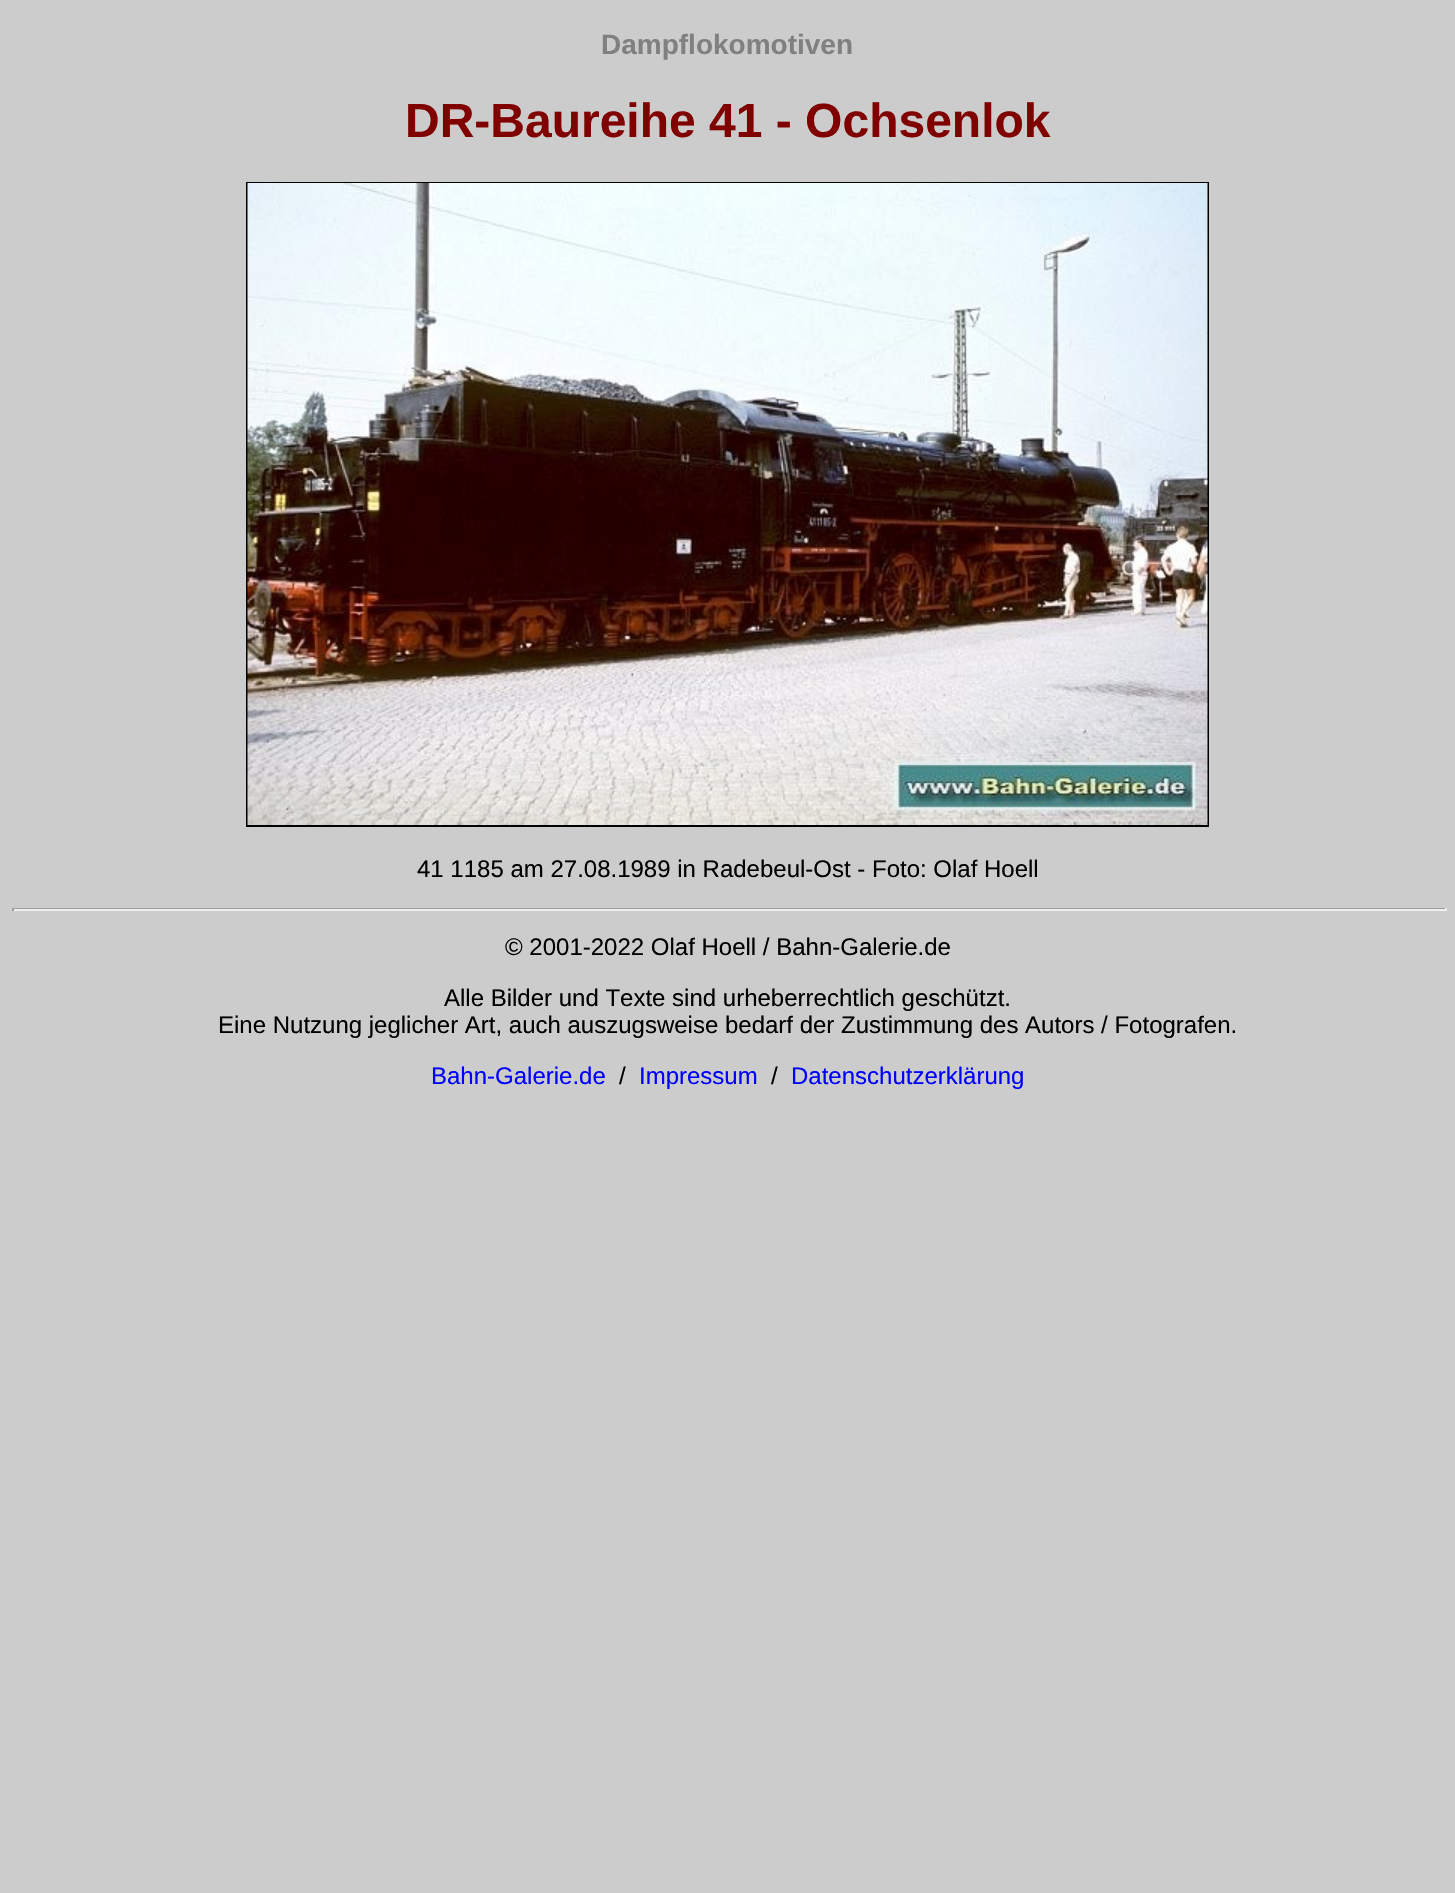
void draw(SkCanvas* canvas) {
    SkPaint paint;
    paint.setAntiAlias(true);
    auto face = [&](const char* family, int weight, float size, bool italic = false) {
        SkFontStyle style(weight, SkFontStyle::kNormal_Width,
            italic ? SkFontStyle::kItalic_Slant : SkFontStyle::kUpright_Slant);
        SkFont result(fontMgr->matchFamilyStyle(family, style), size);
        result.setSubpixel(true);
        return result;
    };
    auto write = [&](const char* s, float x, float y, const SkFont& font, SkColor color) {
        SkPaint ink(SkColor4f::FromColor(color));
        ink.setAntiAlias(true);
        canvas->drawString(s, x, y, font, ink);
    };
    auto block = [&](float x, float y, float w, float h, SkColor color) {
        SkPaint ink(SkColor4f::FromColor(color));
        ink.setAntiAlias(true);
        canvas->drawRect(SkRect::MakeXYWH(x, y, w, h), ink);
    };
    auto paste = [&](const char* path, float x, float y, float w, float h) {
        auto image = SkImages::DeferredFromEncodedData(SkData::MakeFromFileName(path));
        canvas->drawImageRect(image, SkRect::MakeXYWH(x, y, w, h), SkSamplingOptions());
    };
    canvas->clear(SkColorSetRGB(204, 204, 204));
    auto kFont1 = face("Liberation Sans", 700, 28);
    write("Dampflokomotiven", 601, 54, kFont1, SkColorSetRGB(128, 128, 128));
    auto kFont2 = face("Liberation Sans", 700, 48);
    write("DR-Baureihe 41 - Ochsenlok", 405, 137, kFont2, SkColorSetRGB(128, 0, 0));
    paint.setStyle(SkPaint::kStroke_Style);
    paint.setStrokeWidth(2);
    paint.setColor(SK_ColorBLACK);
    canvas->drawRect(SkRect::MakeXYWH(247, 183, 961, 643), paint);
    paste("pic1.png", 247, 183, 961, 642);
    auto kFont3 = face("Liberation Sans", 400, 24);
    write("41 1185 am 27.08.1989 in Radebeul-Ost - Foto: Olaf Hoell", 417, 877, kFont3, SK_ColorBLACK);
    block(12, 908, 1434, 1, SkColorSetRGB(159, 159, 159));
    block(1445, 908, 2, 3, SkColorSetRGB(238, 238, 238));
    block(12, 909, 1434, 2, SkColorSetRGB(238, 238, 238));
    block(12, 908, 2, 3, SkColorSetRGB(159, 159, 159));
    write("© 2001-2022 Olaf Hoell / Bahn-Galerie.de", 505, 955, kFont3, SK_ColorBLACK);
    write("Alle Bilder und Texte sind urheberrechtlich geschützt.", 444, 1006, kFont3, SK_ColorBLACK);
    write("Eine Nutzung jeglicher Art, auch auszugsweise bedarf der Zustimmung des Autors / Fotografen.", 218, 1033, kFont3, SK_ColorBLACK);
    write("Bahn-Galerie.de", 431, 1084, kFont3, SkColorSetRGB(0, 0, 255));
    write("/", 619, 1084, kFont3, SK_ColorBLACK);
    write("Impressum", 639, 1084, kFont3, SkColorSetRGB(0, 0, 255));
    write("/", 771, 1084, kFont3, SK_ColorBLACK);
    write("Datenschutzerklärung", 791, 1084, kFont3, SkColorSetRGB(0, 0, 255));
}
